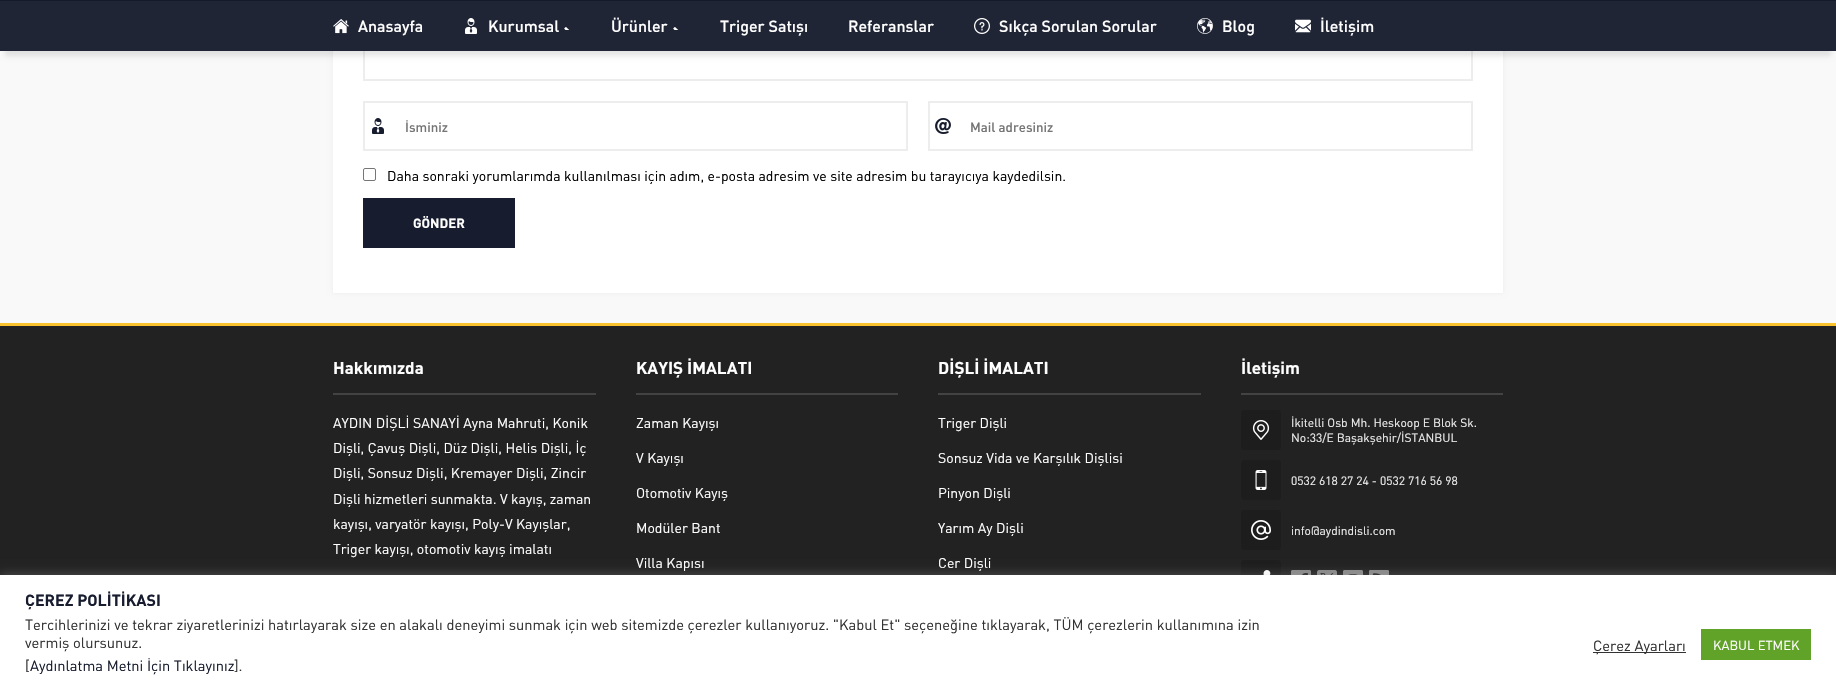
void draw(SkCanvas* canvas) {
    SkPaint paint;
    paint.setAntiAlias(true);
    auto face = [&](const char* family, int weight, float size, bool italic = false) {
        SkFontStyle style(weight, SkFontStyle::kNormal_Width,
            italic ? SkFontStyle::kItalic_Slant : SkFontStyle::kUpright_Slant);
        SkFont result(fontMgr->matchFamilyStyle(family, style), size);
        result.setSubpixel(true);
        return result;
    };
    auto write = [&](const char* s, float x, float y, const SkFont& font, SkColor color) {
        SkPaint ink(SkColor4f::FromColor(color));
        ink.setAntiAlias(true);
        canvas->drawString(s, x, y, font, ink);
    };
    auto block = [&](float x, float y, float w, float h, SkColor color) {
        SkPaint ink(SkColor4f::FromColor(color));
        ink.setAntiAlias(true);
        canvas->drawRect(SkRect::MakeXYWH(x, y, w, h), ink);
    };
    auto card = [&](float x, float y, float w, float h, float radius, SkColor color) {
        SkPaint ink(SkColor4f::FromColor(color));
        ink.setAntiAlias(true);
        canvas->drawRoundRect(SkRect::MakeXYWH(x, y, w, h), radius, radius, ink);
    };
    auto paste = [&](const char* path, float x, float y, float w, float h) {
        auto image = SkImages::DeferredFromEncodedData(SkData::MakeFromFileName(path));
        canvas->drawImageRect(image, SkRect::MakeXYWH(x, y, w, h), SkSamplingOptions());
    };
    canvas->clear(SkColorSetRGB(249, 249, 249));
    paint.setColor(SkColorSetARGB(13, 0, 0, 0));
    paint.setMaskFilter(SkMaskFilter::MakeBlur(kNormal_SkBlurStyle, 2.5f));
    canvas->drawRect(SkRect::MakeXYWH(333, -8, 1170, 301), paint);
    paint.setMaskFilter(nullptr);
    block(333, 51, 1170, 242, SK_ColorWHITE);
    paint.setStyle(SkPaint::kStroke_Style);
    paint.setStrokeWidth(2);
    paint.setColor(SkColorSetRGB(237, 237, 237));
    canvas->drawRect(SkRect::MakeXYWH(364, 2, 1108, 78), paint);
    paint.setStyle(SkPaint::kFill_Style);
    paint.setColor(SkColorSetARGB(26, 0, 0, 0));
    paint.setMaskFilter(SkMaskFilter::MakeBlur(kNormal_SkBlurStyle, 2.5f));
    canvas->drawRect(SkRect::MakeXYWH(5, 15, 1826, 41), paint);
    paint.setMaskFilter(nullptr);
    block(0, 0, 1836, 1, SkColorSetRGB(21, 26, 43));
    block(0, 1, 1836, 50, SkColorSetRGB(32, 37, 54));
    paste("pic1.png", 333, 19, 16, 15);
    auto kFont1 = face("DIN", 500, 16);
    write("Anasayfa", 358, 32, kFont1, SK_ColorWHITE);
    paste("pic2.png", 465, 18, 12, 16);
    write("Kurumsal", 488, 32, kFont1, SK_ColorWHITE);
    paste("pic3.png", 564, 27, 6, 3);
    write("Ürünler", 611, 32, kFont1, SK_ColorWHITE);
    paste("pic3.png", 673, 27, 6, 3);
    write("Triger Satışı", 720, 32, kFont1, SK_ColorWHITE);
    write("Referanslar", 848, 32, kFont1, SK_ColorWHITE);
    paste("pic4.png", 974, 18, 16, 16);
    write("Sıkça Sorulan Sorular", 999, 32, kFont1, SK_ColorWHITE);
    paste("pic5.png", 1197, 18, 16, 16);
    write("Blog", 1222, 32, kFont1, SK_ColorWHITE);
    paste("pic6.png", 1295, 19, 16, 14);
    write("İletişim", 1320, 32, kFont1, SK_ColorWHITE);
    paint.setStyle(SkPaint::kStroke_Style);
    paint.setColor(SkColorSetRGB(237, 237, 237));
    canvas->drawRect(SkRect::MakeXYWH(364, 102, 543, 48), paint);
    paste("pic7.png", 372, 118, 12, 16);
    auto kFont2 = face("DIN", 500, 13.25f);
    write("İsminiz", 405, 132, kFont2, SkColorSetRGB(117, 117, 117));
    canvas->drawRect(SkRect::MakeXYWH(929, 102, 543, 48), paint);
    paste("pic8.png", 935, 118, 16, 16);
    write("Mail adresiniz", 970, 132, kFont2, SkColorSetRGB(117, 117, 117));
    paint.setStrokeWidth(1);
    paint.setColor(SkColorSetRGB(118, 118, 118));
    canvas->drawRoundRect(SkRect::MakeXYWH(363.5f, 168.5f, 12, 12), 1.5f, 1.5f, paint);
    auto kFont3 = face("DIN", 400, 14);
    write("Daha sonraki yorumlarımda kullanılması için adım, e-posta adresim ve site adresim bu tarayıcıya kaydedilsin.", 387, 181, kFont3, SK_ColorBLACK);
    block(363, 198, 152, 50, SkColorSetRGB(23, 28, 46));
    auto kFont4 = face("DIN", 700, 13.25f);
    write("GÖNDER", 413, 228, kFont4, SK_ColorWHITE);
    block(0, 326, 1836, 249, SkColorSetRGB(34, 34, 34));
    block(0, 323, 1836, 3, SkColorSetRGB(250, 195, 45));
    block(333, 393, 263, 2, SkColorSetRGB(67, 67, 67));
    auto kFont5 = face("DIN", 700, 17);
    write("Hakkımızda", 333, 374, kFont5, SK_ColorWHITE);
    write("AYDIN DİŞLİ SANAYİ Ayna Mahruti, Konik", 333, 428, kFont3, SK_ColorWHITE);
    write("Dişli, Çavuş Dişli, Düz Dişli, Helis Dişli, İç", 333, 453, kFont3, SK_ColorWHITE);
    write("Dişli, Sonsuz Dişli, Kremayer Dişli, Zincir", 333, 478, kFont3, SK_ColorWHITE);
    write("Dişli hizmetleri sunmakta. V kayış, zaman", 333, 504, kFont3, SK_ColorWHITE);
    write("kayışı, varyatör kayışı, Poly-V Kayışlar,", 333, 529, kFont3, SK_ColorWHITE);
    write("Triger kayışı, otomotiv kayış imalatı", 333, 554, kFont3, SK_ColorWHITE);
    block(636, 393, 262, 2, SkColorSetRGB(67, 67, 67));
    write("KAYIŞ İMALATI", 636, 374, kFont5, SK_ColorWHITE);
    write("Zaman Kayışı", 636, 428, kFont3, SK_ColorWHITE);
    write("V Kayışı", 636, 463, kFont3, SK_ColorWHITE);
    write("Otomotiv Kayış", 636, 498, kFont3, SK_ColorWHITE);
    write("Modüler Bant", 636, 533, kFont3, SK_ColorWHITE);
    write("Villa Kapısı", 636, 568, kFont3, SK_ColorWHITE);
    block(938, 393, 263, 2, SkColorSetRGB(67, 67, 67));
    write("DİŞLİ İMALATI", 938, 374, kFont5, SK_ColorWHITE);
    write("Triger Dişli", 938, 428, kFont3, SK_ColorWHITE);
    write("Sonsuz Vida ve Karşılık Dişlisi", 938, 463, kFont3, SK_ColorWHITE);
    write("Pinyon Dişli", 938, 498, kFont3, SK_ColorWHITE);
    write("Yarım Ay Dişli", 938, 533, kFont3, SK_ColorWHITE);
    write("Cer Dişli", 938, 568, kFont3, SK_ColorWHITE);
    block(1241, 393, 262, 2, SkColorSetRGB(67, 67, 67));
    write("İletişim", 1241, 374, kFont5, SK_ColorWHITE);
    card(1241, 410, 40, 40, 3, SkColorSetRGB(29, 29, 29));
    paste("pic9.png", 1252, 420, 18, 20);
    auto kFont6 = face("DIN", 400, 12);
    write("İkitelli Osb Mh. Heskoop E Blok Sk.", 1291, 427, kFont6, SkColorSetRGB(238, 238, 238));
    write("No:33/E Başakşehir/İSTANBUL", 1291, 442, kFont6, SkColorSetRGB(238, 238, 238));
    card(1241, 460, 40, 40, 3, SkColorSetRGB(29, 29, 29));
    paste("pic10.png", 1255, 470, 12, 20);
    write("0532 618 27 24 - 0532 716 56 98", 1291, 485, kFont6, SkColorSetRGB(238, 238, 238));
    card(1241, 510, 40, 40, 3, SkColorSetRGB(29, 29, 29));
    paste("pic11.png", 1251, 520, 20, 20);
    write("info@aydindisli.com", 1291, 535, kFont6, SkColorSetRGB(238, 238, 238));
    card(1241, 560, 40, 40, 3, SkColorSetRGB(29, 29, 29));
    paste("pic12.png", 1263, 570, 8, 5);
    paste("pic13.png", 1291, 570, 20, 5);
    paste("pic14.png", 1317, 570, 20, 5);
    paste("pic15.png", 1343, 570, 20, 5);
    paste("pic16.png", 1369, 570, 20, 5);
    paint.setStyle(SkPaint::kFill_Style);
    paint.setColor(SkColorSetARGB(77, 172, 171, 171));
    paint.setMaskFilter(SkMaskFilter::MakeBlur(kNormal_SkBlurStyle, 5));
    canvas->drawRect(SkRect::MakeXYWH(0, 574, 1836, 113), paint);
    paint.setMaskFilter(nullptr);
    block(0, 575, 1836, 113, SK_ColorWHITE);
    auto kFont7 = face("DIN", 700, 16);
    write("ÇEREZ POLİTİKASI", 25, 606, kFont7, SkColorSetRGB(23, 28, 46));
    auto kFont8 = face("DIN", 400, 14.67f);
    write("Tercihlerinizi ve tekrar ziyaretlerinizi hatırlayarak size en alakalı deneyimi sunmak için web sitemizde çerezler kullanıyoruz. \"Kabul Et\" seçeneğine tıklayarak, TÜM çerezlerin kullanımına izin", 25, 630, kFont8, SkColorSetRGB(51, 51, 51));
    write("vermiş olursunuz.", 25, 648, kFont8, SkColorSetRGB(51, 51, 51));
    write("[", 25, 671, kFont8, SkColorSetRGB(51, 51, 51));
    write("Aydınlatma Metni İçin Tıklayınız", 30, 671, kFont8, SkColorSetRGB(23, 28, 46));
    write("].", 234, 671, kFont8, SkColorSetRGB(51, 51, 51));
    block(1593, 652, 93, 1, SkColorSetRGB(51, 51, 51));
    write("Çerez Ayarları", 1593, 651, kFont8, SkColorSetRGB(51, 51, 51));
    block(1701, 629, 110, 31, SkColorSetRGB(97, 162, 41));
    auto kFont9 = face("DIN", 400, 13);
    write("KABUL ETMEK", 1713, 650, kFont9, SK_ColorWHITE);
}
